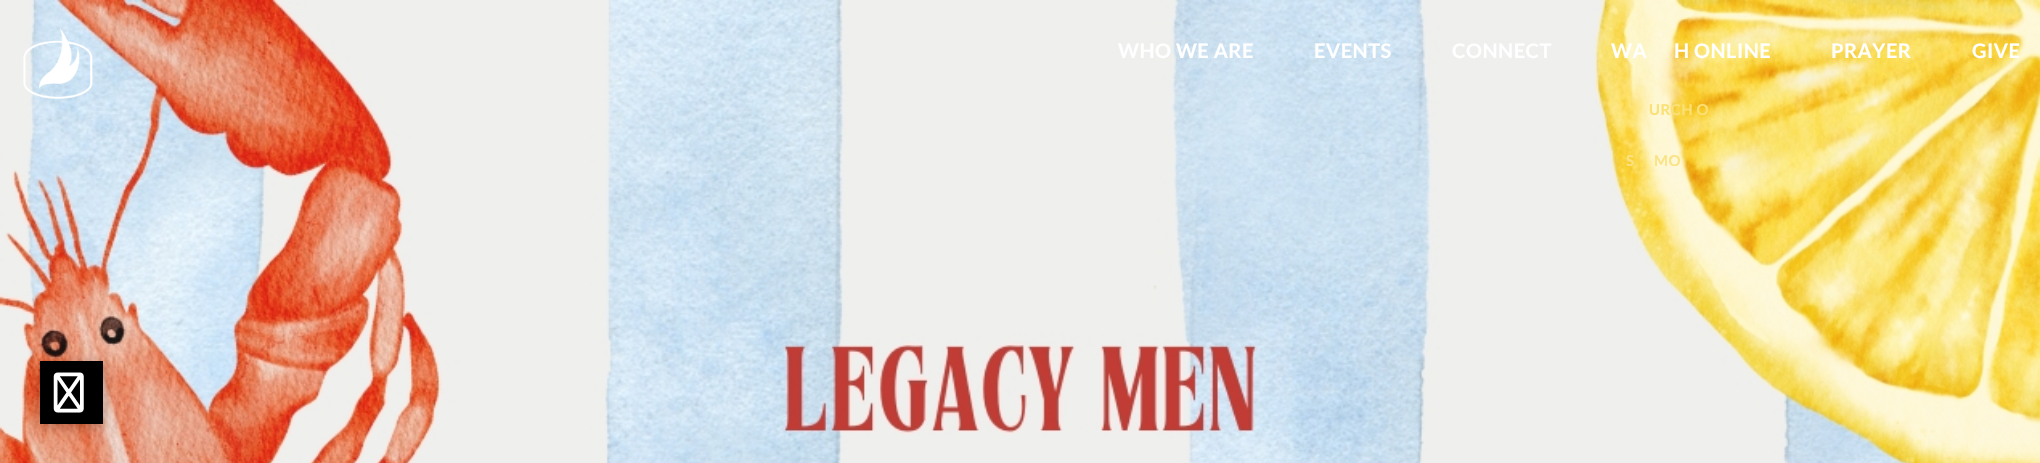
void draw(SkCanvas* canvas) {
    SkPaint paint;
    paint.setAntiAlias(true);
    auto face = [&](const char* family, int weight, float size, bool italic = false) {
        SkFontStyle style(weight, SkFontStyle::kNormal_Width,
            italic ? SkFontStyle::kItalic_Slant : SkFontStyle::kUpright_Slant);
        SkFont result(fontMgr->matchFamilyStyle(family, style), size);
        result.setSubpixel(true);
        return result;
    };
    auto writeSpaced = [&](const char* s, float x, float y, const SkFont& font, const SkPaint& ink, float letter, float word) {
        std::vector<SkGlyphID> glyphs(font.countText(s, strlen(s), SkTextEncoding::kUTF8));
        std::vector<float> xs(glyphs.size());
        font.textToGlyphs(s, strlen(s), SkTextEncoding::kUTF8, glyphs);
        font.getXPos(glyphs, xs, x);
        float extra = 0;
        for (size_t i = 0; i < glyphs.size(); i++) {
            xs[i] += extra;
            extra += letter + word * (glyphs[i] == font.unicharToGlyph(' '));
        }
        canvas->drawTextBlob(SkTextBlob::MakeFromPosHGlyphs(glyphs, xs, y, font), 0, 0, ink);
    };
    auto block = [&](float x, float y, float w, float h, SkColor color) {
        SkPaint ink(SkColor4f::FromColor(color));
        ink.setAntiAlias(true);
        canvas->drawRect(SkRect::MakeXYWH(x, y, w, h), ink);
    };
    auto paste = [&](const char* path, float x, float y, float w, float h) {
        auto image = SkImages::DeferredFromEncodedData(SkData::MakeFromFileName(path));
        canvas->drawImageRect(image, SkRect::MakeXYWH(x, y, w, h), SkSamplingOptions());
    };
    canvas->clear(SK_ColorWHITE);
    paste("pic1.png", 0, 0, 2040, 463);
    paste("pic2.png", 23, 28, 70, 71);
    auto kFont1 = face("Lato", 700, 20);
    paint.setColor(SK_ColorWHITE);
    writeSpaced("WHO WE ARE", 1118, 58, kFont1, paint, 0.5f, 0);
    writeSpaced("EVENTS", 1314, 58, kFont1, paint, 0.5f, 0);
    writeSpaced("CONNECT", 1452, 58, kFont1, paint, 0.5f, 0);
    writeSpaced("WA", 1611, 58, kFont1, paint, 0.5f, 0);
    writeSpaced("H ONLINE", 1674, 58, kFont1, paint, 0.5f, 0);
    auto kFont2 = face("Lato", 700, 15);
    paint.setColor(SkColorSetRGB(251, 224, 116));
    writeSpaced("URCH O", 1649, 115, kFont2, paint, 0.5f, 0);
    paint.setColor(SkColorSetRGB(251, 227, 133));
    writeSpaced("S", 1626, 166, kFont2, paint, 0.5f, 0);
    writeSpaced("MO", 1654, 166, kFont2, paint, 0.5f, 0);
    paint.setColor(SK_ColorWHITE);
    writeSpaced("PRAYER", 1831, 58, kFont1, paint, 0.5f, 0);
    writeSpaced("GIVE", 1972, 58, kFont1, paint, 0.5f, 0);
    paint.setColor(SkColorSetARGB(64, 0, 0, 0));
    paint.setMaskFilter(SkMaskFilter::MakeBlur(kNormal_SkBlurStyle, 6));
    canvas->drawRect(SkRect::MakeXYWH(40, 364, 63, 62), paint);
    paint.setMaskFilter(nullptr);
    block(40, 361, 63, 63, SK_ColorBLACK);
    paste("pic3.png", 53, 372, 31, 41);
}
